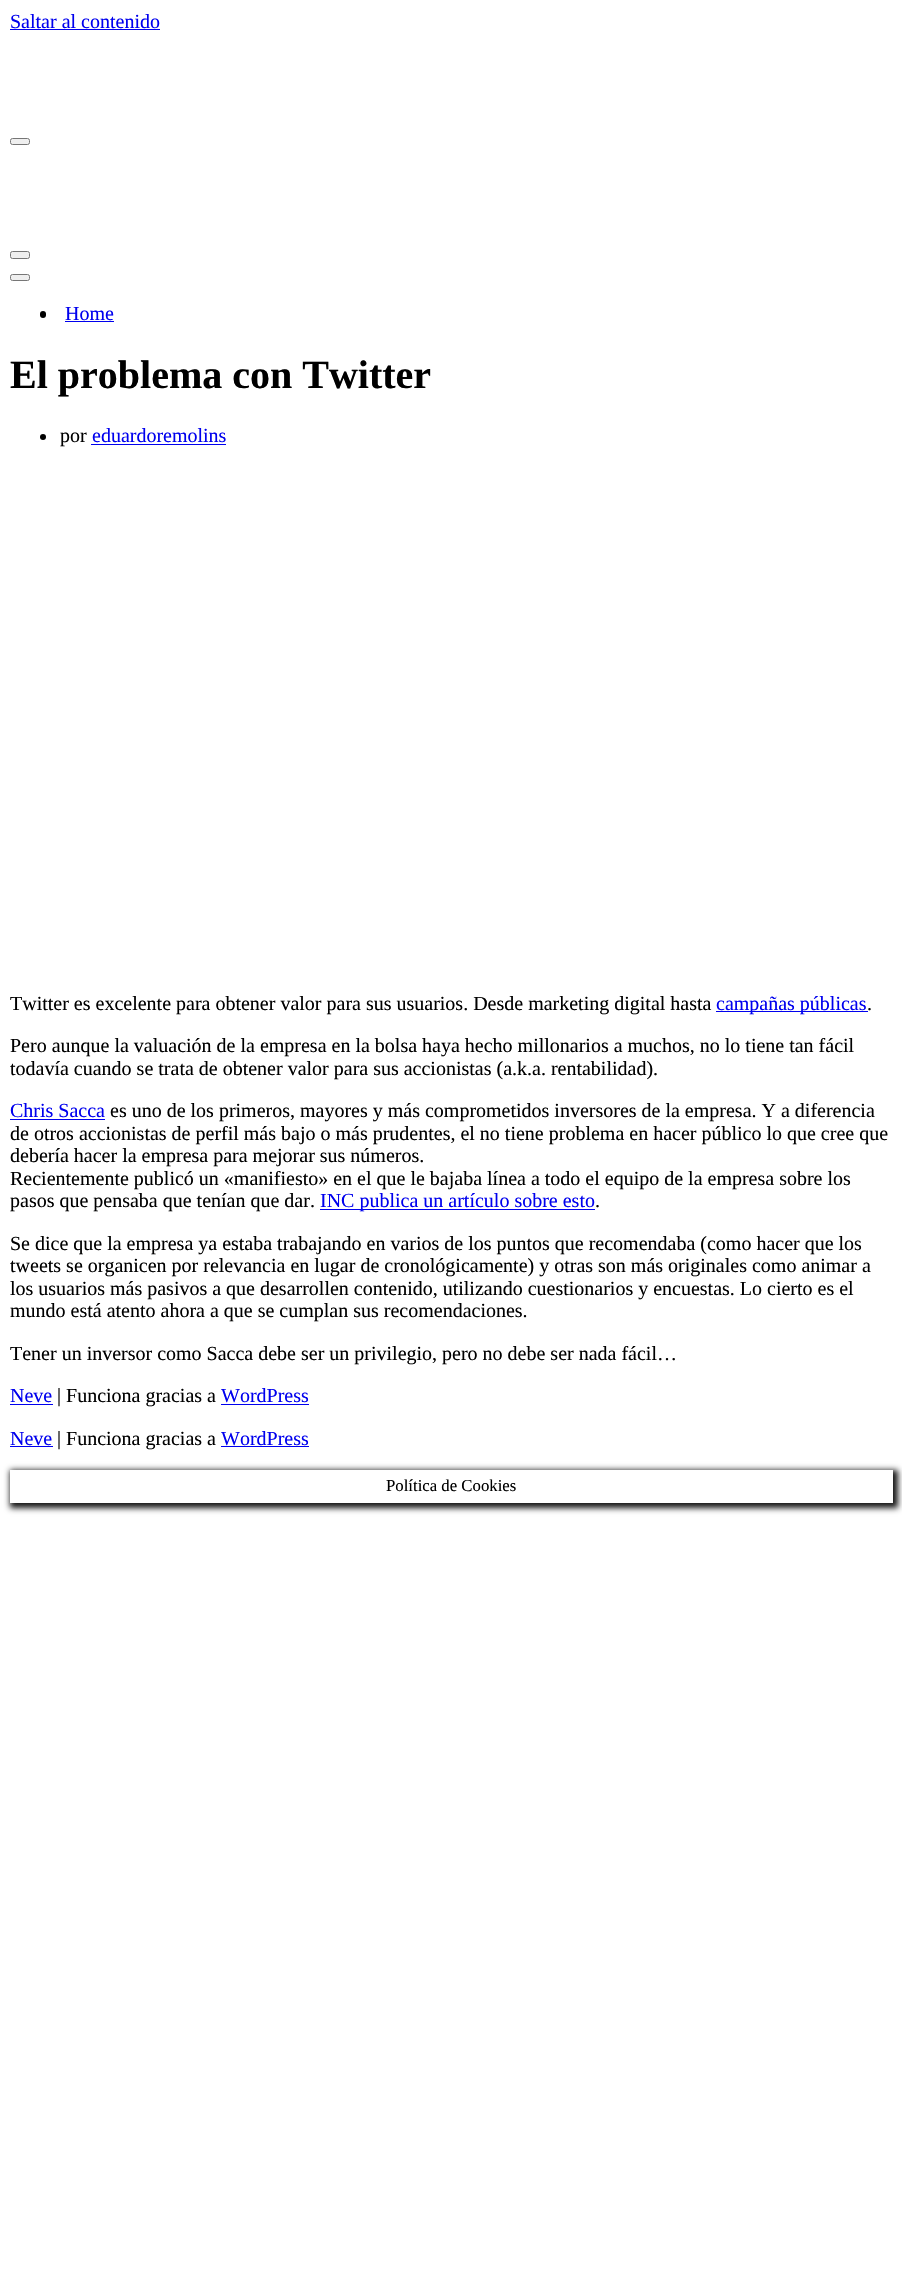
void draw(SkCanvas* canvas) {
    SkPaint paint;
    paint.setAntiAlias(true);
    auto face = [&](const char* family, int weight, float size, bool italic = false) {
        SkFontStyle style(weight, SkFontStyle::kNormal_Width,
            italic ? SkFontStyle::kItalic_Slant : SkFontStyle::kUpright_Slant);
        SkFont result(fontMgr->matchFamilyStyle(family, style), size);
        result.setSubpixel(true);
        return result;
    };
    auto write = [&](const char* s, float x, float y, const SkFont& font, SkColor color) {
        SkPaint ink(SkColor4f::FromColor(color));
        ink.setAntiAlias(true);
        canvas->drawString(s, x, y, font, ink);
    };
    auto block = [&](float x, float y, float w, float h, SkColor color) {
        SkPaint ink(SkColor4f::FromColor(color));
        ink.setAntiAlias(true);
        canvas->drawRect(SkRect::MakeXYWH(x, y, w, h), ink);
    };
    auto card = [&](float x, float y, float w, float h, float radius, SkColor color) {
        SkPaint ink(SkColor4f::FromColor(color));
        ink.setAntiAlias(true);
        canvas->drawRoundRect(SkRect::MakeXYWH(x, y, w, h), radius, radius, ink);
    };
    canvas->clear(SK_ColorWHITE);
    auto kFont1 = face("Liberation Serif", 400, 20);
    write("Saltar al contenido", 10, 28, kFont1, SkColorSetRGB(0, 0, 238));
    block(10, 29, 150, 1, SkColorSetRGB(0, 0, 238));
    paint.setColor(SkColorSetRGB(239, 239, 239));
    canvas->drawRoundRect(SkRect::MakeXYWH(10.5f, 138.5f, 19, 6), 2, 2, paint);
    paint.setStyle(SkPaint::kStroke_Style);
    paint.setStrokeWidth(1);
    paint.setColor(SkColorSetRGB(118, 118, 118));
    canvas->drawRoundRect(SkRect::MakeXYWH(10.5f, 138.5f, 19, 6), 2, 2, paint);
    paint.setStyle(SkPaint::kFill_Style);
    paint.setColor(SkColorSetRGB(239, 239, 239));
    canvas->drawRoundRect(SkRect::MakeXYWH(10.5f, 251.5f, 19, 7), 2, 2, paint);
    paint.setStyle(SkPaint::kStroke_Style);
    paint.setColor(SkColorSetRGB(118, 118, 118));
    canvas->drawRoundRect(SkRect::MakeXYWH(10.5f, 251.5f, 19, 7), 2, 2, paint);
    paint.setStyle(SkPaint::kFill_Style);
    paint.setColor(SkColorSetRGB(239, 239, 239));
    canvas->drawRoundRect(SkRect::MakeXYWH(10.5f, 274.5f, 19, 6), 2, 2, paint);
    paint.setStyle(SkPaint::kStroke_Style);
    paint.setColor(SkColorSetRGB(118, 118, 118));
    canvas->drawRoundRect(SkRect::MakeXYWH(10.5f, 274.5f, 19, 6), 2, 2, paint);
    card(40, 311, 6, 7, 3, SK_ColorBLACK);
    write("Home", 65, 320, kFont1, SkColorSetRGB(0, 0, 238));
    block(65, 321, 49, 1, SkColorSetRGB(0, 0, 238));
    auto kFont2 = face("Liberation Serif", 700, 40);
    write("El problema con Twitter", 10, 388, kFont2, SK_ColorBLACK);
    paint.setStyle(SkPaint::kFill_Style);
    paint.setColor(SK_ColorBLACK);
    canvas->drawCircle(43, 437, 3, paint);
    write("por", 60, 442, kFont1, SK_ColorBLACK);
    block(91, 444, 135, 1, SkColorSetRGB(0, 0, 238));
    write("eduardoremolins", 92, 442, kFont1, SkColorSetRGB(0, 0, 238));
    write("Twitter es excelente para obtener valor para sus usuarios. Desde marketing digital hasta", 10, 1010, kFont1, SK_ColorBLACK);
    block(716, 1011, 152, 1, SkColorSetRGB(0, 0, 238));
    write("campañas públicas", 716, 1010, kFont1, SkColorSetRGB(0, 0, 238));
    write(".", 867, 1010, kFont1, SK_ColorBLACK);
    write("Pero aunque la valuación de la empresa en la bolsa haya hecho millonarios a muchos, no lo tiene tan fácil", 10, 1052, kFont1, SK_ColorBLACK);
    write("todavía cuando se trata de obtener valor para sus accionistas (a.k.a. rentabilidad).", 10, 1075, kFont1, SK_ColorBLACK);
    write("Chris Sacca", 10, 1117, kFont1, SkColorSetRGB(0, 0, 238));
    block(10, 1119, 95, 1, SkColorSetRGB(0, 0, 238));
    write("es uno de los primeros, mayores y más comprometidos inversores de la empresa. Y a diferencia", 110, 1117, kFont1, SK_ColorBLACK);
    write("de otros accionistas de perfil más bajo o más prudentes, el no tiene problema en hacer público lo que cree que", 10, 1140, kFont1, SK_ColorBLACK);
    write("debería hacer la empresa para mejorar sus números.", 10, 1162, kFont1, SK_ColorBLACK);
    write("Recientemente publicó un «manifiesto» en el que le bajaba línea a todo el equipo de la empresa sobre los", 10, 1185, kFont1, SK_ColorBLACK);
    write("pasos que pensaba que tenían que dar.", 10, 1207, kFont1, SK_ColorBLACK);
    block(320, 1209, 275, 1, SkColorSetRGB(0, 0, 238));
    write("INC publica un artículo sobre esto", 320, 1207, kFont1, SkColorSetRGB(0, 0, 238));
    write(".", 595, 1207, kFont1, SK_ColorBLACK);
    write("Se dice que la empresa ya estaba trabajando en varios de los puntos que recomendaba (como hacer que los", 10, 1250, kFont1, SK_ColorBLACK);
    write("tweets se organicen por relevancia en lugar de cronológicamente) y otras son más originales como animar a", 10, 1272, kFont1, SK_ColorBLACK);
    write("los usuarios más pasivos a que desarrollen contenido, utilizando cuestionarios y encuestas. Lo cierto es el", 10, 1295, kFont1, SK_ColorBLACK);
    write("mundo está atento ahora a que se cumplan sus recomendaciones.", 10, 1317, kFont1, SK_ColorBLACK);
    write("Tener un inversor como Sacca debe ser un privilegio, pero no debe ser nada fácil…", 10, 1360, kFont1, SK_ColorBLACK);
    write("Neve", 10, 1402, kFont1, SkColorSetRGB(0, 0, 238));
    block(10, 1404, 43, 1, SkColorSetRGB(0, 0, 238));
    write("| Funciona gracias a", 57, 1402, kFont1, SK_ColorBLACK);
    write("WordPress", 221, 1402, kFont1, SkColorSetRGB(0, 0, 238));
    block(221, 1404, 88, 1, SkColorSetRGB(0, 0, 238));
    write("Neve", 10, 1445, kFont1, SkColorSetRGB(0, 0, 238));
    block(10, 1446, 43, 1, SkColorSetRGB(0, 0, 238));
    write("| Funciona gracias a", 57, 1445, kFont1, SK_ColorBLACK);
    write("WordPress", 221, 1445, kFont1, SkColorSetRGB(0, 0, 238));
    block(221, 1446, 88, 1, SkColorSetRGB(0, 0, 238));
    canvas->save();
    canvas->clipPath(SkPathBuilder(SkPathFillType::kEvenOdd).moveTo(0, 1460).lineTo(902, 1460).lineTo(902, 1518).lineTo(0, 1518).close().moveTo(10, 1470).lineTo(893, 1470).lineTo(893, 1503).lineTo(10, 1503).close().detach(), true);
    paint.setColor(SkColorSetRGB(22, 22, 22));
    paint.setMaskFilter(SkMaskFilter::MakeBlur(kNormal_SkBlurStyle, 3));
    canvas->drawRect(SkRect::MakeXYWH(10, 1470, 888, 38), paint);
    paint.setMaskFilter(nullptr);
    canvas->restore();
    auto kFont3 = face("Liberation Serif", 400, 16.75f);
    write("Política de Cookies", 386, 1491, kFont3, SK_ColorBLACK);
}
